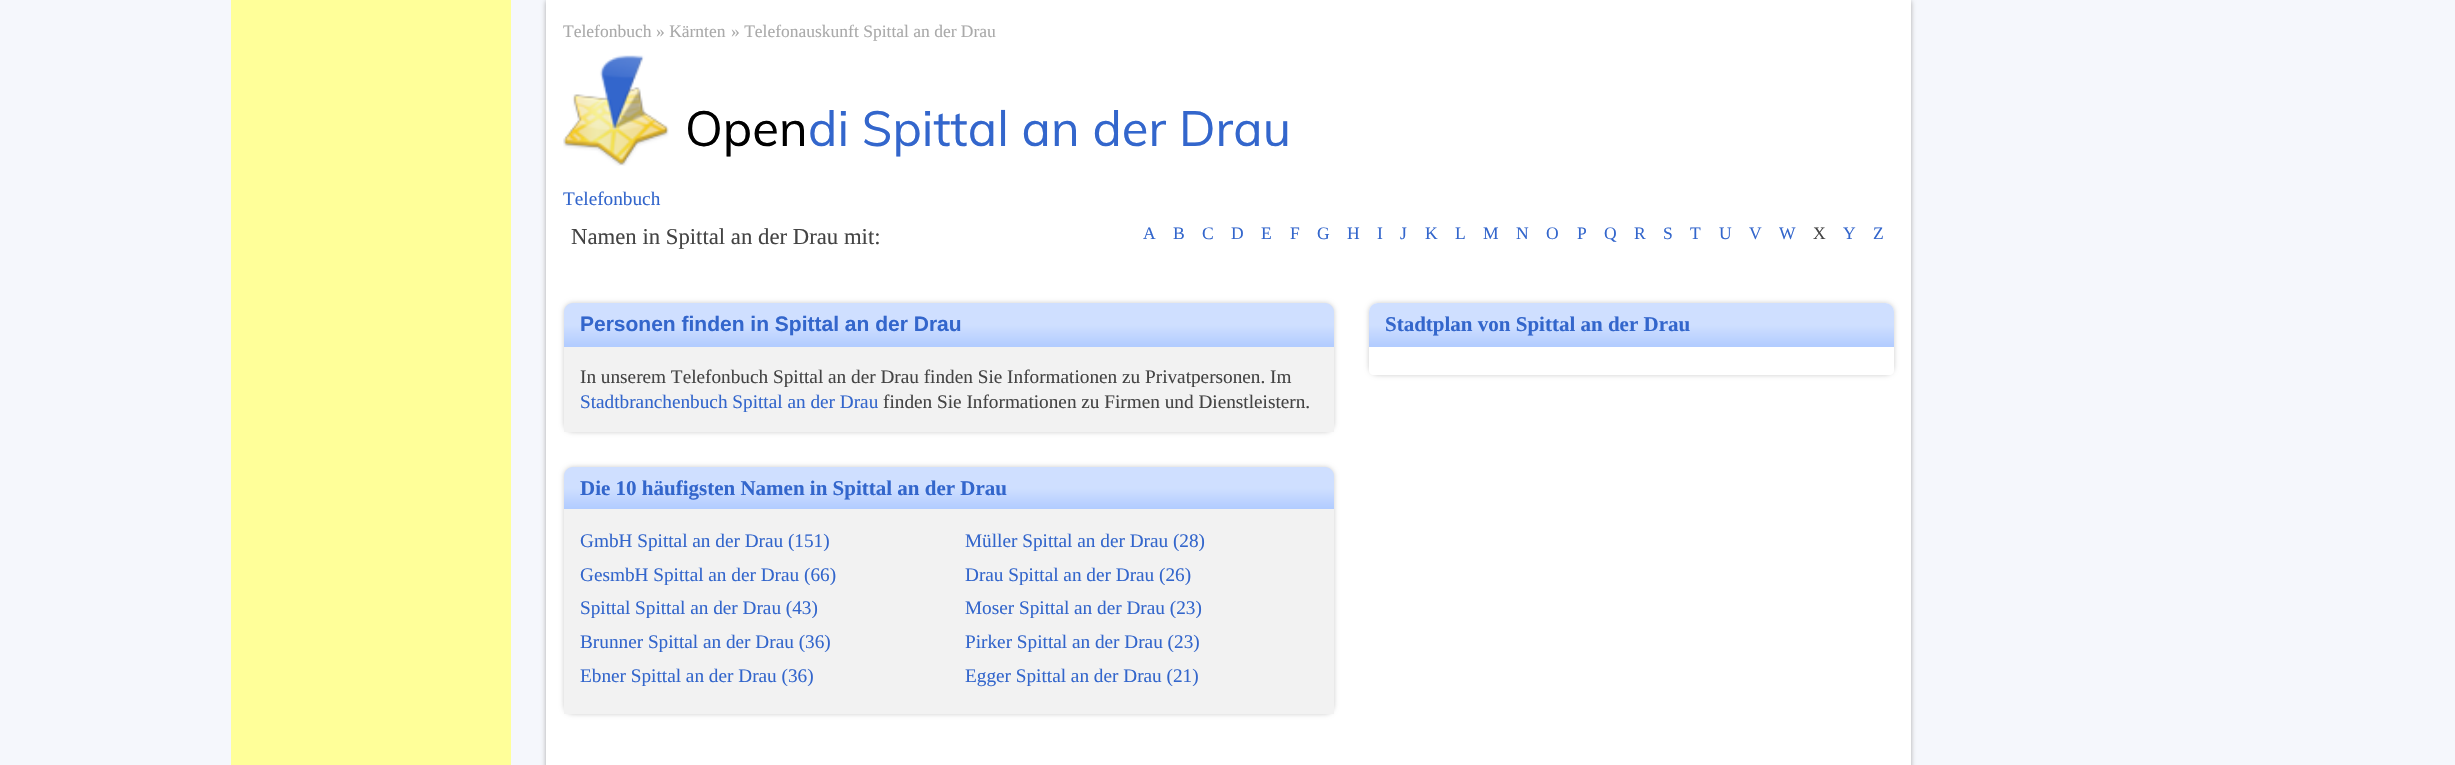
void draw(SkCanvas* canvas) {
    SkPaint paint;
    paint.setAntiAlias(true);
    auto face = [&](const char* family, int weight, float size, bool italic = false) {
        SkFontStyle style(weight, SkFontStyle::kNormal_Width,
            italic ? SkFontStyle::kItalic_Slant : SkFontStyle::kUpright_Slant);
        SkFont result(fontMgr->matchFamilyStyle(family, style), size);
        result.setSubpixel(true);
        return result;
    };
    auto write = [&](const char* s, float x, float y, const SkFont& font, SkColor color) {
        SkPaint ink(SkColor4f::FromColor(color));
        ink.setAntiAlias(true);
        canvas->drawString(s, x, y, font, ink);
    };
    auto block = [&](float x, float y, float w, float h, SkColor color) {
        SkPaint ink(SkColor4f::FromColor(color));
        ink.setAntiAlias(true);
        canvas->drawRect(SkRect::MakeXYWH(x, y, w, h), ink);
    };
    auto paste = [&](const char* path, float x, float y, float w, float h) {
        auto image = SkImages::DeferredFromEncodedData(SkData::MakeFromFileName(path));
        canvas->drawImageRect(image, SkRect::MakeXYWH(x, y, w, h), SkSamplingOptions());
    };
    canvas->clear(SkColorSetRGB(245, 247, 252));
    paint.setColor(SkColorSetRGB(170, 170, 170));
    paint.setMaskFilter(SkMaskFilter::MakeBlur(kNormal_SkBlurStyle, 2.5f));
    canvas->drawRoundRect(SkRect::MakeXYWH(546, 0, 1365, 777), 4, 4, paint);
    paint.setMaskFilter(nullptr);
    block(546, 0, 1365, 765, SK_ColorWHITE);
    block(231, 0, 280, 765, SkColorSetRGB(255, 255, 153));
    auto kFont1 = face("Liberation Serif", 400, 17.5f);
    write("Telefonbuch", 563, 37, kFont1, SkColorSetRGB(170, 170, 170));
    write("» Kärnten", 656, 37, kFont1, SkColorSetRGB(170, 170, 170));
    write("» Telefonauskunft Spittal an der Drau", 731, 37, kFont1, SkColorSetRGB(170, 170, 170));
    paste("pic1.png", 563, 55, 106, 111);
    auto kFont2 = face("Muli", 400, 49);
    write("Open", 685, 146, kFont2, SK_ColorBLACK);
    write("di Spittal an der Drau", 808, 146, kFont2, SkColorSetRGB(51, 102, 204));
    auto kFont3 = face("Liberation Serif", 400, 19.25f);
    write("Telefonbuch", 563, 205, kFont3, SkColorSetRGB(51, 102, 204));
    auto kFont4 = face("Liberation Serif", 400, 22.75f);
    write("Namen in Spittal an der Drau mit:", 571, 244, kFont4, SkColorSetRGB(68, 68, 68));
    write("A", 1143, 239, kFont1, SkColorSetRGB(51, 102, 204));
    write("B", 1173, 239, kFont1, SkColorSetRGB(51, 102, 204));
    write("C", 1202, 239, kFont1, SkColorSetRGB(51, 102, 204));
    write("D", 1231, 239, kFont1, SkColorSetRGB(51, 102, 204));
    write("E", 1261, 239, kFont1, SkColorSetRGB(51, 102, 204));
    write("F", 1290, 239, kFont1, SkColorSetRGB(51, 102, 204));
    write("G", 1317, 239, kFont1, SkColorSetRGB(51, 102, 204));
    write("H", 1347, 239, kFont1, SkColorSetRGB(51, 102, 204));
    write("I", 1377, 239, kFont1, SkColorSetRGB(51, 102, 204));
    write("J", 1400, 239, kFont1, SkColorSetRGB(51, 102, 204));
    write("K", 1425, 239, kFont1, SkColorSetRGB(51, 102, 204));
    write("L", 1455, 239, kFont1, SkColorSetRGB(51, 102, 204));
    write("M", 1483, 239, kFont1, SkColorSetRGB(51, 102, 204));
    write("N", 1516, 239, kFont1, SkColorSetRGB(51, 102, 204));
    write("O", 1546, 239, kFont1, SkColorSetRGB(51, 102, 204));
    write("P", 1577, 239, kFont1, SkColorSetRGB(51, 102, 204));
    write("Q", 1604, 239, kFont1, SkColorSetRGB(51, 102, 204));
    write("R", 1634, 239, kFont1, SkColorSetRGB(51, 102, 204));
    write("S", 1663, 239, kFont1, SkColorSetRGB(51, 102, 204));
    write("T", 1690, 239, kFont1, SkColorSetRGB(51, 102, 204));
    write("U", 1719, 239, kFont1, SkColorSetRGB(51, 102, 204));
    write("V", 1749, 239, kFont1, SkColorSetRGB(51, 102, 204));
    write("W", 1779, 239, kFont1, SkColorSetRGB(51, 102, 204));
    write("X", 1813, 239, kFont1, SkColorSetRGB(68, 68, 68));
    write("Y", 1843, 239, kFont1, SkColorSetRGB(51, 102, 204));
    write("Z", 1873, 239, kFont1, SkColorSetRGB(51, 102, 204));
    paint.setColor(SkColorSetRGB(204, 204, 204));
    paint.setMaskFilter(SkMaskFilter::MakeBlur(kNormal_SkBlurStyle, 2.5f));
    canvas->drawRoundRect(SkRect::MakeXYWH(564, 303, 770, 129), 9, 9, paint);
    paint.setMaskFilter(nullptr);
    {
        const SkColor colors[] = {SkColorSetRGB(178, 204, 255), SkColorSetRGB(207, 223, 255)};
        const float stops[] = {0.02f, 0.5f};
        const SkPoint ends[] = {{564, 347}, {564, 303}};
        paint.setShader(SkGradientShader::MakeLinear(ends, colors, stops, 2, SkTileMode::kClamp));
        paint.setAlpha(255);
    }
    canvas->drawPath(SkPathBuilder().moveTo(573, 303).lineTo(1325, 303).cubicTo(1330, 303, 1334, 307, 1334, 312).lineTo(1334, 347).lineTo(564, 347).lineTo(564, 312).cubicTo(564, 307, 568, 303, 573, 303).close().detach(), paint);
    auto kFont5 = face("Liberation Sans", 700, 21);
    write("Personen finden in Spittal an der Drau", 580, 331, kFont5, SkColorSetRGB(51, 102, 204));
    block(564, 347, 770, 85, SkColorSetRGB(242, 242, 242));
    write("In unserem Telefonbuch Spittal an der Drau finden Sie Informationen zu Privatpersonen. Im", 580, 383, kFont3, SkColorSetRGB(68, 68, 68));
    write("Stadtbranchenbuch Spittal an der Drau", 580, 408, kFont3, SkColorSetRGB(51, 102, 204));
    write("finden Sie Informationen zu Firmen und Dienstleistern.", 883, 408, kFont3, SkColorSetRGB(68, 68, 68));
    canvas->save();
    canvas->clipPath(SkPathBuilder(SkPathFillType::kEvenOdd).moveTo(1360, 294).lineTo(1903, 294).lineTo(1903, 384).lineTo(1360, 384).close().moveTo(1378, 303).lineTo(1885, 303).cubicTo(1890, 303, 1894, 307, 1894, 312).lineTo(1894, 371).cubicTo(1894, 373, 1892, 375, 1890, 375).lineTo(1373, 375).cubicTo(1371, 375, 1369, 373, 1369, 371).lineTo(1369, 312).cubicTo(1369, 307, 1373, 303, 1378, 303).close().detach(), true);
    paint.setShader(nullptr);
    paint.setColor(SkColorSetRGB(204, 204, 204));
    paint.setMaskFilter(SkMaskFilter::MakeBlur(kNormal_SkBlurStyle, 2.5f));
    canvas->drawRoundRect(SkRect::MakeXYWH(1369, 303, 525, 72), 9, 9, paint);
    paint.setMaskFilter(nullptr);
    canvas->restore();
    {
        const SkColor colors[] = {SkColorSetRGB(178, 204, 255), SkColorSetRGB(207, 223, 255)};
        const float stops[] = {0.02f, 0.5f};
        const SkPoint ends[] = {{1369, 347}, {1369, 303}};
        paint.setShader(SkGradientShader::MakeLinear(ends, colors, stops, 2, SkTileMode::kClamp));
        paint.setAlpha(255);
    }
    canvas->drawPath(SkPathBuilder().moveTo(1378, 303).lineTo(1885, 303).cubicTo(1890, 303, 1894, 307, 1894, 312).lineTo(1894, 347).lineTo(1369, 347).lineTo(1369, 312).cubicTo(1369, 307, 1373, 303, 1378, 303).close().detach(), paint);
    auto kFont6 = face("Liberation Serif", 700, 21);
    write("Stadtplan von Spittal an der Drau", 1385, 331, kFont6, SkColorSetRGB(51, 102, 204));
    paint.setShader(nullptr);
    paint.setColor(SkColorSetRGB(204, 204, 204));
    paint.setMaskFilter(SkMaskFilter::MakeBlur(kNormal_SkBlurStyle, 2.5f));
    canvas->drawRoundRect(SkRect::MakeXYWH(564, 467, 770, 247), 9, 9, paint);
    paint.setMaskFilter(nullptr);
    {
        const SkColor colors[] = {SkColorSetRGB(178, 204, 255), SkColorSetRGB(207, 223, 255)};
        const float stops[] = {0.02f, 0.5f};
        const SkPoint ends[] = {{564, 509}, {564, 467}};
        paint.setShader(SkGradientShader::MakeLinear(ends, colors, stops, 2, SkTileMode::kClamp));
        paint.setAlpha(255);
    }
    canvas->drawPath(SkPathBuilder().moveTo(573, 467).lineTo(1325, 467).cubicTo(1330, 467, 1334, 471, 1334, 476).lineTo(1334, 509).lineTo(564, 509).lineTo(564, 476).cubicTo(564, 471, 568, 467, 573, 467).close().detach(), paint);
    write("Die 10 häufigsten Namen in Spittal an der Drau", 580, 495, kFont6, SkColorSetRGB(51, 102, 204));
    block(564, 509, 770, 205, SkColorSetRGB(242, 242, 242));
    write("GmbH Spittal an der Drau (151)", 580, 547, kFont3, SkColorSetRGB(51, 102, 204));
    write("GesmbH Spittal an der Drau (66)", 580, 581, kFont3, SkColorSetRGB(51, 102, 204));
    write("Spittal Spittal an der Drau (43)", 580, 614, kFont3, SkColorSetRGB(51, 102, 204));
    write("Brunner Spittal an der Drau (36)", 580, 648, kFont3, SkColorSetRGB(51, 102, 204));
    write("Ebner Spittal an der Drau (36)", 580, 682, kFont3, SkColorSetRGB(51, 102, 204));
    write("Müller Spittal an der Drau (28)", 965, 547, kFont3, SkColorSetRGB(51, 102, 204));
    write("Drau Spittal an der Drau (26)", 965, 581, kFont3, SkColorSetRGB(51, 102, 204));
    write("Moser Spittal an der Drau (23)", 965, 614, kFont3, SkColorSetRGB(51, 102, 204));
    write("Pirker Spittal an der Drau (23)", 965, 648, kFont3, SkColorSetRGB(51, 102, 204));
    write("Egger Spittal an der Drau (21)", 965, 682, kFont3, SkColorSetRGB(51, 102, 204));
}
